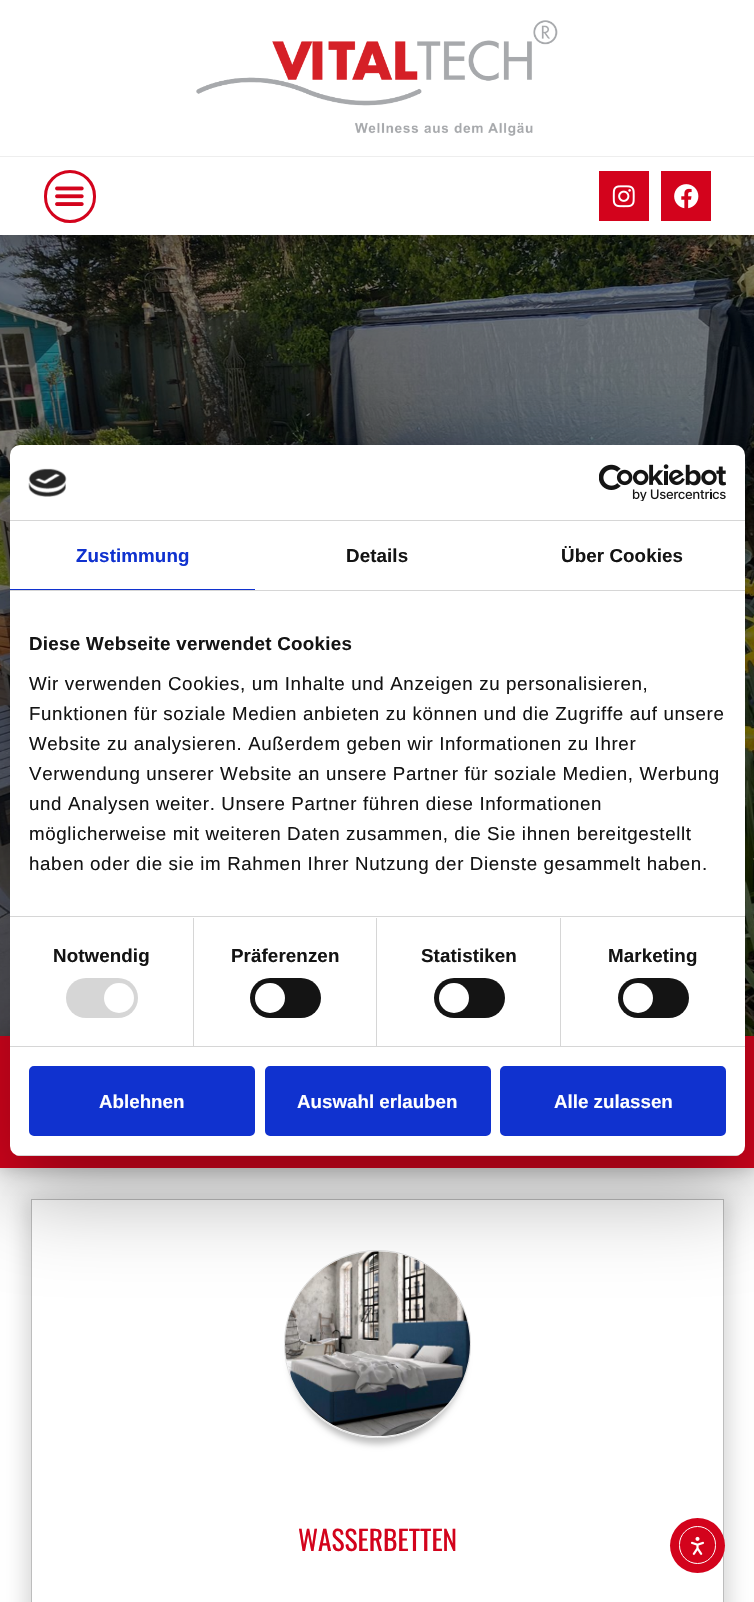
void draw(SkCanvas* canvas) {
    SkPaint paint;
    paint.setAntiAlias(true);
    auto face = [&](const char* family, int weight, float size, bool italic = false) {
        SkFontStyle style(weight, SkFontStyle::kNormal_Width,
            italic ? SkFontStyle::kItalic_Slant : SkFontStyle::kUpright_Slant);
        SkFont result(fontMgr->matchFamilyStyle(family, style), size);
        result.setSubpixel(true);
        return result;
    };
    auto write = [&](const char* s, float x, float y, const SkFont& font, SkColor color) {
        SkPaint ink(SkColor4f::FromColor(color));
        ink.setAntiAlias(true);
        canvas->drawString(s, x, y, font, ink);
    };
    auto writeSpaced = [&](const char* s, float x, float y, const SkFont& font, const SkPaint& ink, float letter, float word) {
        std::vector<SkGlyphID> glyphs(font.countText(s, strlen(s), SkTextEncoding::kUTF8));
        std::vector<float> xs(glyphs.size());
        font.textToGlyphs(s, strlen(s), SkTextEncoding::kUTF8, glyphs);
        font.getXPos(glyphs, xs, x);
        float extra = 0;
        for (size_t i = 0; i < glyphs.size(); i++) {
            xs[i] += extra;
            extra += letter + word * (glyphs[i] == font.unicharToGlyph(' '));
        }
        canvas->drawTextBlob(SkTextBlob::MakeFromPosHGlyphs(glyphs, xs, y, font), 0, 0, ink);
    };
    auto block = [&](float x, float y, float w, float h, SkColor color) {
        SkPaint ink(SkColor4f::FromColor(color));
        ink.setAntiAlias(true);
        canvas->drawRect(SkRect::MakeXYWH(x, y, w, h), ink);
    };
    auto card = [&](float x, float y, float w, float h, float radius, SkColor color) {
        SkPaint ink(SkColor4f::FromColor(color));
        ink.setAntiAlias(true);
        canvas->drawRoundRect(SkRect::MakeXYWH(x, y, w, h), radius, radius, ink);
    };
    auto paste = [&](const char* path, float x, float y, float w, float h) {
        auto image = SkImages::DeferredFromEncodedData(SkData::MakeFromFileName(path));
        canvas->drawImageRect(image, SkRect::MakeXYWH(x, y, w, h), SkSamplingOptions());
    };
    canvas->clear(SK_ColorWHITE);
    block(0, 156, 754, 1, SkColorSetRGB(238, 238, 238));
    paste("pic1.png", 196, 20, 362, 116);
    paste("pic7.png", 0, 235, 754, 801);
    canvas->save();
    canvas->clipRect(SkRect::MakeXYWH(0, 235, 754, 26));
    paint.setColor(SkColorSetARGB(64, 0, 0, 0));
    paint.setMaskFilter(SkMaskFilter::MakeBlur(kNormal_SkBlurStyle, 9.5f));
    canvas->drawRect(SkRect::MakeXYWH(0, 170, 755, 78), paint);
    paint.setMaskFilter(nullptr);
    canvas->restore();
    paint.setStyle(SkPaint::kStroke_Style);
    paint.setStrokeWidth(3);
    paint.setColor(SkColorSetRGB(211, 3, 28));
    canvas->drawRoundRect(SkRect::MakeXYWH(45.5f, 171.5f, 49, 50), 24.5f, 24.5f, paint);
    paste("pic2.png", 55, 186, 29, 20);
    block(599, 171, 50, 50, SkColorSetRGB(211, 3, 28));
    paste("pic3.png", 612, 185, 23, 23);
    block(661, 171, 50, 50, SkColorSetRGB(211, 3, 28));
    paste("pic4.png", 674, 184, 25, 25);
    paint.setStyle(SkPaint::kFill_Style);
    paint.setColor(SkColorSetARGB(64, 0, 0, 0));
    paint.setMaskFilter(SkMaskFilter::MakeBlur(kNormal_SkBlurStyle, 9.5f));
    canvas->drawRect(SkRect::MakeXYWH(0, 1036, 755, 132), paint);
    paint.setMaskFilter(nullptr);
    block(0, 1036, 754, 132, SkColorSetRGB(211, 3, 28));
    canvas->save();
    canvas->clipPath(SkPathBuilder(SkPathFillType::kEvenOdd).moveTo(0, 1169).lineTo(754, 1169).lineTo(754, 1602).lineTo(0, 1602).close().moveTo(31, 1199).lineTo(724, 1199).lineTo(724, 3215).lineTo(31, 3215).close().detach(), true);
    paint.setColor(SkColorSetARGB(38, 0, 0, 0));
    paint.setMaskFilter(SkMaskFilter::MakeBlur(kNormal_SkBlurStyle, 9.5f));
    canvas->drawRect(SkRect::MakeXYWH(25, 1199, 705, 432), paint);
    paint.setMaskFilter(nullptr);
    canvas->restore();
    paint.setStyle(SkPaint::kStroke_Style);
    paint.setStrokeWidth(1);
    paint.setColor(SkColorSetRGB(189, 189, 189));
    canvas->drawRect(SkRect::MakeXYWH(31.5f, 1199.5f, 692, 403), paint);
    canvas->save();
    canvas->clipPath(SkPathBuilder(SkPathFillType::kEvenOdd).moveTo(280, 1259).lineTo(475, 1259).lineTo(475, 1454).lineTo(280, 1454).close().moveTo(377.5f, 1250).cubicTo(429, 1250, 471, 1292, 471, 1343.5f).lineTo(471, 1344.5f).cubicTo(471, 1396, 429, 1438, 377.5f, 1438).cubicTo(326, 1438, 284, 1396, 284, 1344.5f).lineTo(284, 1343.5f).cubicTo(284, 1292, 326, 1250, 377.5f, 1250).close().detach(), true);
    paint.setStyle(SkPaint::kFill_Style);
    paint.setColor(SkColorSetARGB(64, 0, 0, 0));
    paint.setMaskFilter(SkMaskFilter::MakeBlur(kNormal_SkBlurStyle, 3));
    canvas->drawRoundRect(SkRect::MakeXYWH(290, 1269, 175, 175), 87.5f, 87.5f, paint);
    paint.setMaskFilter(nullptr);
    canvas->restore();
    paint.setStyle(SkPaint::kStroke_Style);
    paint.setColor(SkColorSetRGB(221, 221, 221));
    canvas->drawRoundRect(SkRect::MakeXYWH(284.5f, 1250.5f, 186, 187), 93, 93, paint);
    paste("pic8.png", 285, 1251, 185, 186);
    paint.setStyle(SkPaint::kFill_Style);
    paint.setColor(SkColorSetARGB(77, 0, 0, 0));
    paint.setMaskFilter(SkMaskFilter::MakeBlur(kNormal_SkBlurStyle, 42.5f));
    canvas->drawRoundRect(SkRect::MakeXYWH(10, 485, 735, 711), 10, 10, paint);
    paint.setMaskFilter(nullptr);
    card(10, 445, 735, 711, 10, SK_ColorWHITE);
    block(10, 520, 735, 1, SkColorSetRGB(214, 214, 214));
    paste("pic5.png", 28, 468, 39, 29);
    paste("pic6.png", 599, 464, 127, 37);
    block(10, 590, 735, 1, SkColorSetRGB(214, 214, 214));
    block(10, 589, 245, 1, SkColorSetRGB(16, 50, 207));
    auto kFont1 = face("Liberation Sans", 700, 18.75f);
    paint.setColor(SkColorSetRGB(16, 50, 207));
    writeSpaced("Zustimmung", 76, 562, kFont1, paint, 0.1f, 0);
    paint.setColor(SkColorSetRGB(20, 20, 20));
    writeSpaced("Details", 346, 562, kFont1, paint, 0.1f, 0);
    writeSpaced("Über Cookies", 561, 562, kFont1, paint, 0.1f, 0);
    block(10, 916, 735, 1, SkColorSetRGB(214, 214, 214));
    writeSpaced("Diese Webseite verwendet Cookies", 29, 650, kFont1, paint, 0.3f, 0);
    auto kFont2 = face("Liberation Sans", 400, 18.75f);
    writeSpaced("Wir verwenden Cookies, um Inhalte und Anzeigen zu personalisieren,", 29, 690, kFont2, paint, 0.62f, 0);
    writeSpaced("Funktionen für soziale Medien anbieten zu können und die Zugriffe auf unsere", 29, 720, kFont2, paint, 0.62f, 0);
    writeSpaced("Website zu analysieren. Außerdem geben wir Informationen zu Ihrer", 29, 750, kFont2, paint, 0.62f, 0);
    writeSpaced("Verwendung unserer Website an unsere Partner für soziale Medien, Werbung", 29, 780, kFont2, paint, 0.62f, 0);
    writeSpaced("und Analysen weiter. Unsere Partner führen diese Informationen", 29, 810, kFont2, paint, 0.62f, 0);
    writeSpaced("möglicherweise mit weiteren Daten zusammen, die Sie ihnen bereitgestellt", 29, 840, kFont2, paint, 0.62f, 0);
    writeSpaced("haben oder die sie im Rahmen Ihrer Nutzung der Dienste gesammelt haben.", 29, 870, kFont2, paint, 0.62f, 0);
    block(10, 1046, 735, 1, SkColorSetRGB(214, 214, 214));
    block(193, 918, 1, 128, SkColorSetRGB(214, 214, 214));
    writeSpaced("Notwendig", 53, 962, kFont1, paint, 0.1f, 0);
    card(66, 978, 72, 40, 20, SkColorSetRGB(214, 214, 214));
    paint.setColor(SK_ColorWHITE);
    canvas->drawCircle(119, 998, 15, paint);
    block(376, 918, 1, 128, SkColorSetRGB(214, 214, 214));
    paint.setColor(SkColorSetRGB(20, 20, 20));
    writeSpaced("Präferenzen", 231, 962, kFont1, paint, 0.1f, 0);
    card(250, 978, 71, 40, 20, SkColorSetRGB(20, 20, 20));
    paint.setColor(SK_ColorWHITE);
    canvas->drawCircle(270, 998, 15, paint);
    block(560, 918, 1, 128, SkColorSetRGB(214, 214, 214));
    paint.setColor(SkColorSetRGB(20, 20, 20));
    writeSpaced("Statistiken", 421, 962, kFont1, paint, 0.1f, 0);
    card(434, 978, 71, 40, 20, SkColorSetRGB(20, 20, 20));
    paint.setColor(SK_ColorWHITE);
    canvas->drawCircle(454, 998, 15, paint);
    paint.setColor(SkColorSetRGB(20, 20, 20));
    writeSpaced("Marketing", 608, 962, kFont1, paint, 0.1f, 0);
    card(618, 978, 71, 40, 20, SkColorSetRGB(20, 20, 20));
    paint.setColor(SK_ColorWHITE);
    canvas->drawCircle(638, 998, 15, paint);
    canvas->save();
    canvas->clipPath(SkPathBuilder().moveTo(20, 445).lineTo(735, 445).cubicTo(740.5f, 445, 745, 449.5f, 745, 455).lineTo(745, 1146).cubicTo(745, 1151.5f, 740.5f, 1156, 735, 1156).lineTo(20, 1156).cubicTo(14.5f, 1156, 10, 1151.5f, 10, 1146).lineTo(10, 455).cubicTo(10, 449.5f, 14.5f, 445, 20, 445).close().detach(), true);
    block(10, 1155, 735, 1, SkColorSetRGB(214, 214, 214));
    canvas->restore();
    paint.setColor(SkColorSetRGB(16, 50, 207));
    canvas->drawRoundRect(SkRect::MakeXYWH(30.5f, 1067.5f, 223, 67), 3.5f, 3.5f, paint);
    paint.setStyle(SkPaint::kStroke_Style);
    paint.setStrokeWidth(3);
    canvas->drawRoundRect(SkRect::MakeXYWH(30.5f, 1067.5f, 223, 67), 3.5f, 3.5f, paint);
    write("Ablehnen", 99, 1108, kFont1, SK_ColorWHITE);
    paint.setStyle(SkPaint::kFill_Style);
    canvas->drawRoundRect(SkRect::MakeXYWH(266.5f, 1067.5f, 223, 67), 3.5f, 3.5f, paint);
    paint.setStyle(SkPaint::kStroke_Style);
    canvas->drawRoundRect(SkRect::MakeXYWH(266.5f, 1067.5f, 223, 67), 3.5f, 3.5f, paint);
    write("Auswahl erlauben", 297, 1108, kFont1, SK_ColorWHITE);
    paint.setStyle(SkPaint::kFill_Style);
    canvas->drawRoundRect(SkRect::MakeXYWH(501.5f, 1067.5f, 223, 67), 3.5f, 3.5f, paint);
    paint.setStyle(SkPaint::kStroke_Style);
    canvas->drawRoundRect(SkRect::MakeXYWH(501.5f, 1067.5f, 223, 67), 3.5f, 3.5f, paint);
    write("Alle zulassen", 554, 1108, kFont1, SK_ColorWHITE);
    auto kFont3 = face("Oswald", 400, 27.5f);
    write("WASSERBETTEN", 298, 1551, kFont3, SkColorSetRGB(211, 3, 28));
    paint.setStyle(SkPaint::kFill_Style);
    paint.setColor(SkColorSetRGB(211, 3, 28));
    canvas->drawCircle(697.5f, 1545.5f, 27.5f, paint);
    paint.setStyle(SkPaint::kStroke_Style);
    paint.setStrokeWidth(1);
    paint.setColor(SK_ColorWHITE);
    canvas->drawRoundRect(SkRect::MakeXYWH(679.5f, 1526.5f, 36, 37), 18, 18, paint);
    paste("pic9.png", 691, 1536, 13, 19);
}
